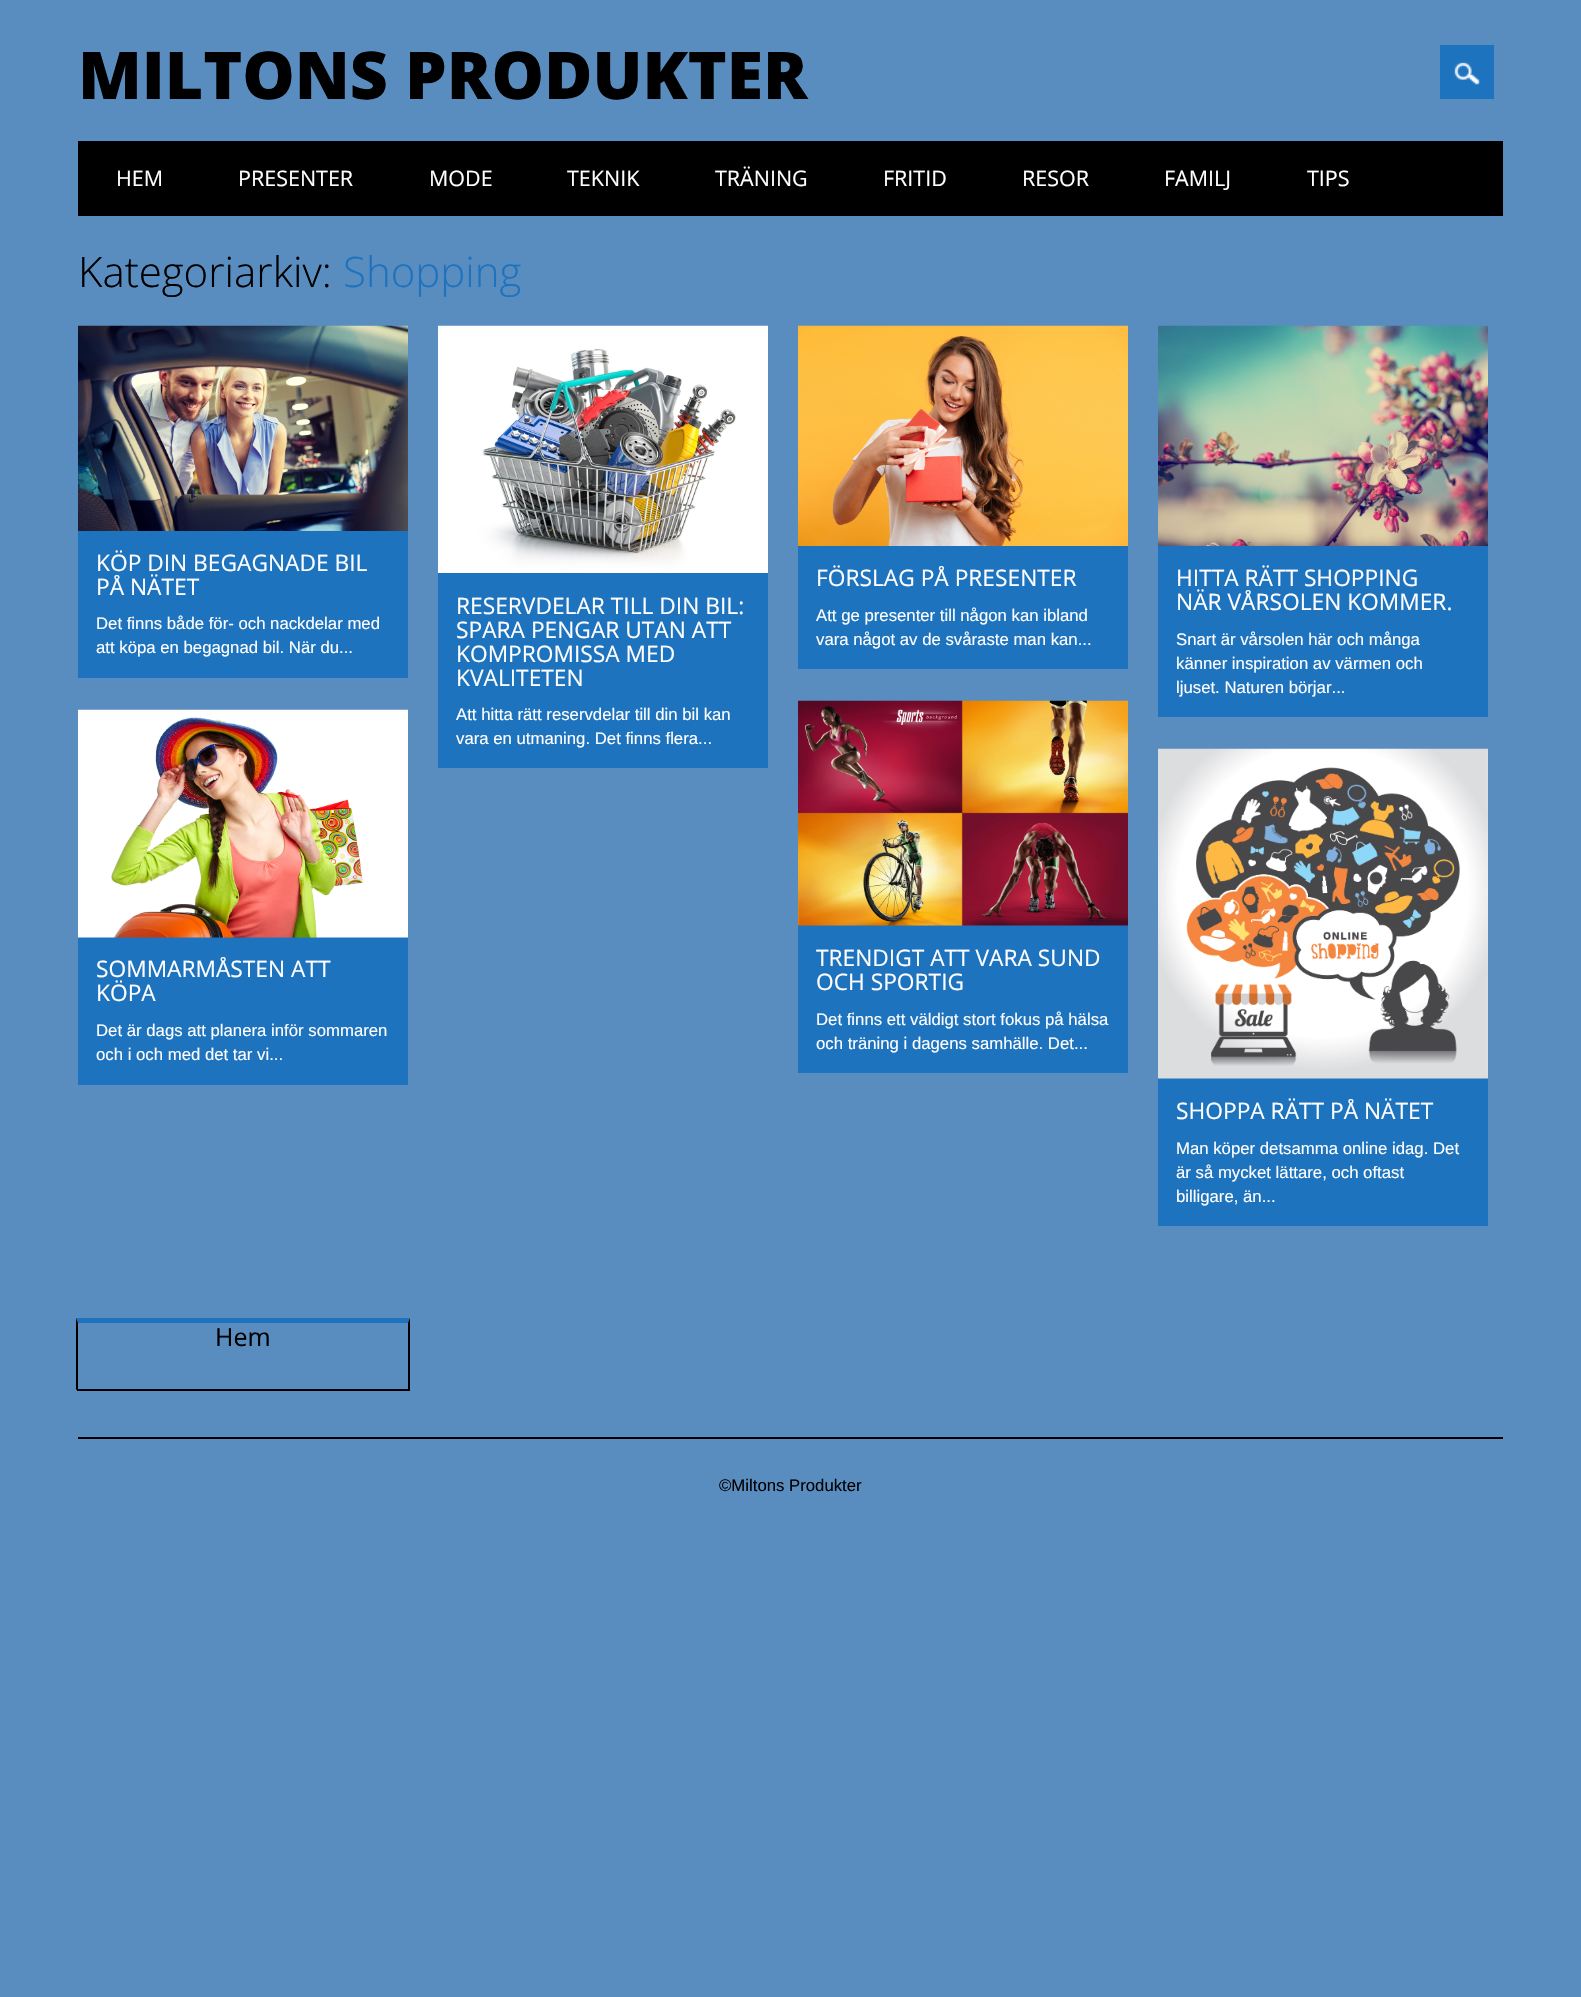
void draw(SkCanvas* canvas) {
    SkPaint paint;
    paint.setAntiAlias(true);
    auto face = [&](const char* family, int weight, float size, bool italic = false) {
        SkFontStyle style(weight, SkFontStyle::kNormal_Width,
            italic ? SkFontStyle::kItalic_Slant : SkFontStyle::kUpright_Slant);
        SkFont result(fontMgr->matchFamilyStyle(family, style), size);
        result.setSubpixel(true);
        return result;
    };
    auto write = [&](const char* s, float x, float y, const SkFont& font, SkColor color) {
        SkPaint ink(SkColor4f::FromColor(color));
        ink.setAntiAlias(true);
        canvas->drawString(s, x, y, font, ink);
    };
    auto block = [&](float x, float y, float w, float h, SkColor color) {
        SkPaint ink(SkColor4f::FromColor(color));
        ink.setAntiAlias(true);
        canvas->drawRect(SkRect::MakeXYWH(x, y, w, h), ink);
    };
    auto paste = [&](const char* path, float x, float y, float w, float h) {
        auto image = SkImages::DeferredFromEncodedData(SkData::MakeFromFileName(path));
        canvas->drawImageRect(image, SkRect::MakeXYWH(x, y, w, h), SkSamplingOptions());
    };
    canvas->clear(SkColorSetRGB(89, 140, 191));
    auto kFont1 = face("Open Sans", 800, 66);
    write("MILTONS PRODUKTER", 78, 99, kFont1, SK_ColorBLACK);
    block(1440, 45, 54, 54, SkColorSetRGB(30, 115, 190));
    paste("pic1.png", 1454, 62, 26, 23);
    block(78, 141, 1425, 75, SK_ColorBLACK);
    auto kFont2 = face("Open Sans", 400, 21.5f);
    write("HEM", 116, 186, kFont2, SK_ColorWHITE);
    write("PRESENTER", 238, 186, kFont2, SK_ColorWHITE);
    write("MODE", 429, 186, kFont2, SK_ColorWHITE);
    write("TEKNIK", 567, 186, kFont2, SK_ColorWHITE);
    write("TRÄNING", 715, 186, kFont2, SK_ColorWHITE);
    write("FRITID", 883, 186, kFont2, SK_ColorWHITE);
    write("RESOR", 1022, 186, kFont2, SK_ColorWHITE);
    write("FAMILJ", 1164, 186, kFont2, SK_ColorWHITE);
    write("TIPS", 1307, 186, kFont2, SK_ColorWHITE);
    auto kFont3 = face("Open Sans", 300, 42);
    write("Kategoriarkiv:", 78, 287, kFont3, SK_ColorBLACK);
    write("Shopping", 343, 287, kFont3, SkColorSetRGB(30, 115, 190));
    block(78, 531, 330, 147, SkColorSetRGB(30, 115, 190));
    paste("pic2.png", 78, 325, 330, 206);
    auto kFont4 = face("Open Sans", 400, 22.75f);
    write("KÖP DIN BEGAGNADE BIL", 96, 571, kFont4, SK_ColorWHITE);
    write("PÅ NÄTET", 96, 595, kFont4, SK_ColorWHITE);
    auto kFont5 = face("Liberation Sans", 400, 16.75f);
    write("Det finns både för- och nackdelar med", 96, 629, kFont5, SK_ColorWHITE);
    write("att köpa en begagnad bil. När du...", 96, 653, kFont5, SK_ColorWHITE);
    block(438, 573, 330, 195, SkColorSetRGB(30, 115, 190));
    paste("pic3.png", 438, 325, 330, 248);
    write("RESERVDELAR TILL DIN BIL:", 456, 614, kFont4, SK_ColorWHITE);
    write("SPARA PENGAR UTAN ATT", 456, 638, kFont4, SK_ColorWHITE);
    write("KOMPROMISSA MED", 456, 662, kFont4, SK_ColorWHITE);
    write("KVALITETEN", 456, 686, kFont4, SK_ColorWHITE);
    write("Att hitta rätt reservdelar till din bil kan", 456, 720, kFont5, SK_ColorWHITE);
    write("vara en utmaning. Det finns flera...", 456, 744, kFont5, SK_ColorWHITE);
    block(798, 546, 330, 123, SkColorSetRGB(30, 115, 190));
    paste("pic4.png", 798, 325, 330, 221);
    write("FÖRSLAG PÅ PRESENTER", 816, 586, kFont4, SK_ColorWHITE);
    write("Att ge presenter till någon kan ibland", 816, 621, kFont5, SK_ColorWHITE);
    write("vara något av de svåraste man kan...", 816, 645, kFont5, SK_ColorWHITE);
    block(1158, 546, 330, 171, SkColorSetRGB(30, 115, 190));
    paste("pic5.png", 1158, 325, 330, 221);
    write("HITTA RÄTT SHOPPING", 1176, 586, kFont4, SK_ColorWHITE);
    write("NÄR VÅRSOLEN KOMMER.", 1176, 610, kFont4, SK_ColorWHITE);
    write("Snart är vårsolen här och många", 1176, 645, kFont5, SK_ColorWHITE);
    write("känner inspiration av värmen och", 1176, 669, kFont5, SK_ColorWHITE);
    write("ljuset. Naturen börjar...", 1176, 693, kFont5, SK_ColorWHITE);
    block(78, 937, 330, 148, SkColorSetRGB(30, 115, 190));
    paste("pic6.png", 78, 709, 330, 229);
    write("SOMMARMÅSTEN ATT", 96, 977, kFont4, SK_ColorWHITE);
    write("KÖPA", 96, 1001, kFont4, SK_ColorWHITE);
    write("Det är dags att planera inför sommaren", 96, 1036, kFont5, SK_ColorWHITE);
    write("och i och med det tar vi...", 96, 1060, kFont5, SK_ColorWHITE);
    block(798, 925, 330, 148, SkColorSetRGB(30, 115, 190));
    paste("pic7.png", 798, 700, 330, 226);
    write("TRENDIGT ATT VARA SUND", 816, 966, kFont4, SK_ColorWHITE);
    write("OCH SPORTIG", 816, 990, kFont4, SK_ColorWHITE);
    write("Det finns ett väldigt stort fokus på hälsa", 816, 1025, kFont5, SK_ColorWHITE);
    write("och träning i dagens samhälle. Det...", 816, 1049, kFont5, SK_ColorWHITE);
    block(1158, 1078, 330, 148, SkColorSetRGB(30, 115, 190));
    paste("pic8.png", 1158, 748, 330, 331);
    write("SHOPPA RÄTT PÅ NÄTET", 1176, 1119, kFont4, SK_ColorWHITE);
    write("Man köper detsamma online idag. Det", 1176, 1154, kFont5, SK_ColorWHITE);
    write("är så mycket lättare, och oftast", 1176, 1178, kFont5, SK_ColorWHITE);
    write("billigare, än...", 1176, 1202, kFont5, SK_ColorWHITE);
    paint.setColor(SkColorSetRGB(30, 115, 190));
    canvas->drawPath(SkPathBuilder().moveTo(76, 1318).lineTo(410, 1318).lineTo(408, 1323).lineTo(78, 1323).close().detach(), paint);
    paint.setColor(SK_ColorBLACK);
    canvas->drawPath(SkPathBuilder().moveTo(410, 1318).lineTo(410, 1390).lineTo(408, 1389).lineTo(408, 1323).close().detach(), paint);
    block(77, 1389, 333, 2, SK_ColorBLACK);
    canvas->drawPath(SkPathBuilder().moveTo(76, 1390).lineTo(76, 1318).lineTo(78, 1323).lineTo(78, 1389).close().detach(), paint);
    auto kFont6 = face("Open Sans", 400, 25);
    write("Hem", 215, 1346, kFont6, SK_ColorBLACK);
    block(78, 1437, 1425, 2, SK_ColorBLACK);
    write("©Miltons Produkter", 719, 1491, kFont5, SK_ColorBLACK);
}
